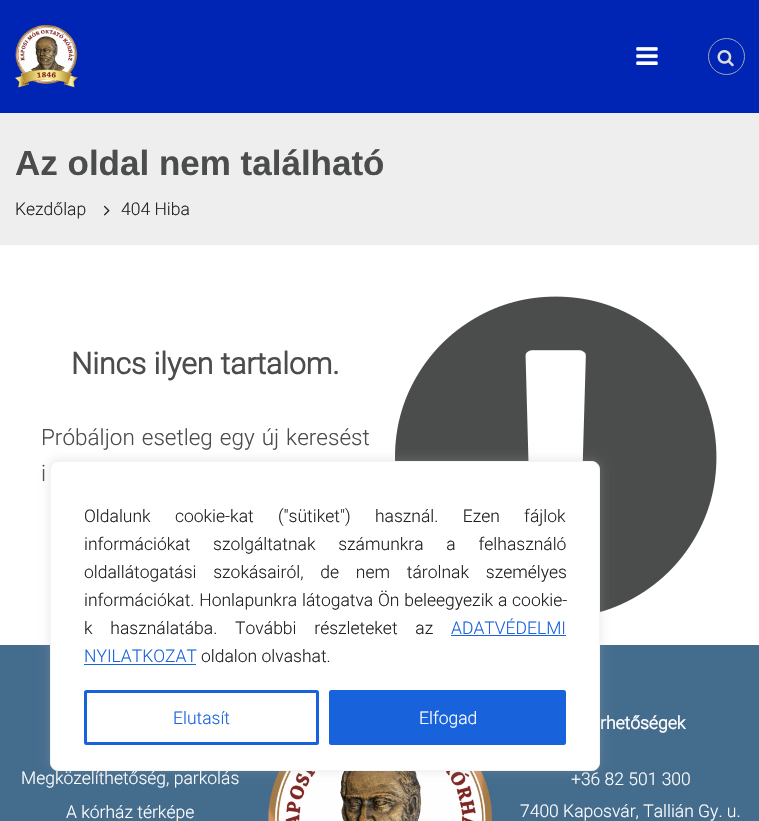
void draw(SkCanvas* canvas) {
    SkPaint paint;
    paint.setAntiAlias(true);
    auto face = [&](const char* family, int weight, float size, bool italic = false) {
        SkFontStyle style(weight, SkFontStyle::kNormal_Width,
            italic ? SkFontStyle::kItalic_Slant : SkFontStyle::kUpright_Slant);
        SkFont result(fontMgr->matchFamilyStyle(family, style), size);
        result.setSubpixel(true);
        return result;
    };
    auto write = [&](const char* s, float x, float y, const SkFont& font, SkColor color) {
        SkPaint ink(SkColor4f::FromColor(color));
        ink.setAntiAlias(true);
        canvas->drawString(s, x, y, font, ink);
    };
    auto writeSpaced = [&](const char* s, float x, float y, const SkFont& font, const SkPaint& ink, float letter, float word) {
        std::vector<SkGlyphID> glyphs(font.countText(s, strlen(s), SkTextEncoding::kUTF8));
        std::vector<float> xs(glyphs.size());
        font.textToGlyphs(s, strlen(s), SkTextEncoding::kUTF8, glyphs);
        font.getXPos(glyphs, xs, x);
        float extra = 0;
        for (size_t i = 0; i < glyphs.size(); i++) {
            xs[i] += extra;
            extra += letter + word * (glyphs[i] == font.unicharToGlyph(' '));
        }
        canvas->drawTextBlob(SkTextBlob::MakeFromPosHGlyphs(glyphs, xs, y, font), 0, 0, ink);
    };
    auto block = [&](float x, float y, float w, float h, SkColor color) {
        SkPaint ink(SkColor4f::FromColor(color));
        ink.setAntiAlias(true);
        canvas->drawRect(SkRect::MakeXYWH(x, y, w, h), ink);
    };
    auto paste = [&](const char* path, float x, float y, float w, float h) {
        auto image = SkImages::DeferredFromEncodedData(SkData::MakeFromFileName(path));
        canvas->drawImageRect(image, SkRect::MakeXYWH(x, y, w, h), SkSamplingOptions());
    };
    canvas->clear(SK_ColorWHITE);
    block(0, 0, 759, 113, SkColorSetRGB(0, 36, 179));
    paste("pic1.png", 15, 25, 63, 63);
    paste("pic2.png", 636, 47, 22, 18);
    paint.setStyle(SkPaint::kStroke_Style);
    paint.setStrokeWidth(1);
    paint.setColor(SkColorSetRGB(156, 166, 178));
    canvas->drawCircle(726.5f, 56.5f, 18, paint);
    paste("pic3.png", 717, 50, 17, 17);
    block(0, 113, 759, 132, SkColorSetRGB(238, 238, 238));
    auto kFont1 = face("Liberation Sans", 700, 35);
    write("Az oldal nem található", 15, 175, kFont1, SkColorSetRGB(75, 76, 76));
    auto kFont2 = face("Roboto", 300, 17.5f);
    write("Kezdőlap", 15, 215, kFont2, SkColorSetRGB(34, 34, 34));
    paste("pic4.png", 103, 205, 7, 11);
    write("404 Hiba", 121, 215, kFont2, SkColorSetRGB(34, 34, 34));
    auto kFont3 = face("Roboto", 700, 30);
    write("Nincs ilyen tartalom.", 71, 374, kFont3, SkColorSetRGB(75, 76, 76));
    auto kFont4 = face("Roboto", 300, 22.5f);
    paint.setStyle(SkPaint::kFill_Style);
    paint.setColor(SkColorSetRGB(75, 76, 76));
    writeSpaced("Próbáljon esetleg egy új keresést", 41, 445, kFont4, paint, 0, 1.5f);
    write("i", 41, 481, kFont4, SkColorSetRGB(75, 76, 76));
    paste("pic5.png", 395, 296, 322, 316);
    block(0, 645, 759, 176, SkColorSetRGB(68, 108, 141));
    write("Megközelíthetőség, parkolás", 21, 784, kFont2, SK_ColorWHITE);
    write("A kórház térképe", 66, 818, kFont2, SK_ColorWHITE);
    paste("pic6.png", 268, 771, 224, 50);
    auto kFont5 = face("Roboto", 700, 17.5f);
    write("rhetőségek", 600, 729, kFont5, SK_ColorWHITE);
    write("+36 82 501 300", 571, 785, kFont2, SK_ColorWHITE);
    write("7400 Kaposvár, Tallián Gy. u.", 520, 817, kFont2, SK_ColorWHITE);
    paint.setColor(SkColorSetARGB(77, 172, 171, 171));
    paint.setMaskFilter(SkMaskFilter::MakeBlur(kNormal_SkBlurStyle, 6));
    canvas->drawRoundRect(SkRect::MakeXYWH(50, 460, 550, 310), 8, 8, paint);
    paint.setMaskFilter(nullptr);
    paint.setColor(SK_ColorWHITE);
    canvas->drawRoundRect(SkRect::MakeXYWH(50.5f, 461.5f, 549, 309), 7.5f, 7.5f, paint);
    paint.setStyle(SkPaint::kStroke_Style);
    paint.setColor(SkColorSetRGB(244, 244, 244));
    canvas->drawRoundRect(SkRect::MakeXYWH(50.5f, 461.5f, 549, 309), 7.5f, 7.5f, paint);
    paint.setStyle(SkPaint::kFill_Style);
    paint.setColor(SkColorSetRGB(34, 34, 34));
    writeSpaced("Oldalunk cookie-kat (\"sütiket\") használ. Ezen fájlok", 84, 522, kFont2, paint, 0, 20);
    writeSpaced("információkat szolgáltatnak számunkra a felhasználó", 84, 550, kFont2, paint, 0, 18.5f);
    writeSpaced("oldallátogatási szokásairól, de nem tárolnak személyes", 84, 578, kFont2, paint, 0, 12.5f);
    writeSpaced("információkat. Honlapunkra látogatva Ön beleegyezik a cookie-", 84, 606, kFont2, paint, 0, 0.5f);
    writeSpaced("k használatába. További részleteket az", 84, 634, kFont2, paint, 0, 13.5f);
    write("ADATVÉDELMI", 451, 634, kFont2, SkColorSetRGB(24, 99, 220));
    block(451, 635, 115, 1, SkColorSetRGB(24, 99, 220));
    write("NYILATKOZAT", 84, 662, kFont2, SkColorSetRGB(24, 99, 220));
    block(84, 664, 112, 1, SkColorSetRGB(24, 99, 220));
    write("oldalon olvashat.", 201, 662, kFont2, SkColorSetRGB(34, 34, 34));
    paint.setStyle(SkPaint::kStroke_Style);
    paint.setStrokeWidth(3);
    paint.setColor(SkColorSetRGB(24, 99, 220));
    canvas->drawRoundRect(SkRect::MakeXYWH(85.5f, 691.5f, 232, 52), 1, 1, paint);
    write("Elutasít", 173, 724, kFont2, SkColorSetRGB(24, 99, 220));
    paint.setStyle(SkPaint::kFill_Style);
    canvas->drawRoundRect(SkRect::MakeXYWH(330.5f, 691.5f, 234, 52), 1, 1, paint);
    paint.setStyle(SkPaint::kStroke_Style);
    canvas->drawRoundRect(SkRect::MakeXYWH(330.5f, 691.5f, 234, 52), 1, 1, paint);
    write("Elfogad", 419, 724, kFont2, SK_ColorWHITE);
}
